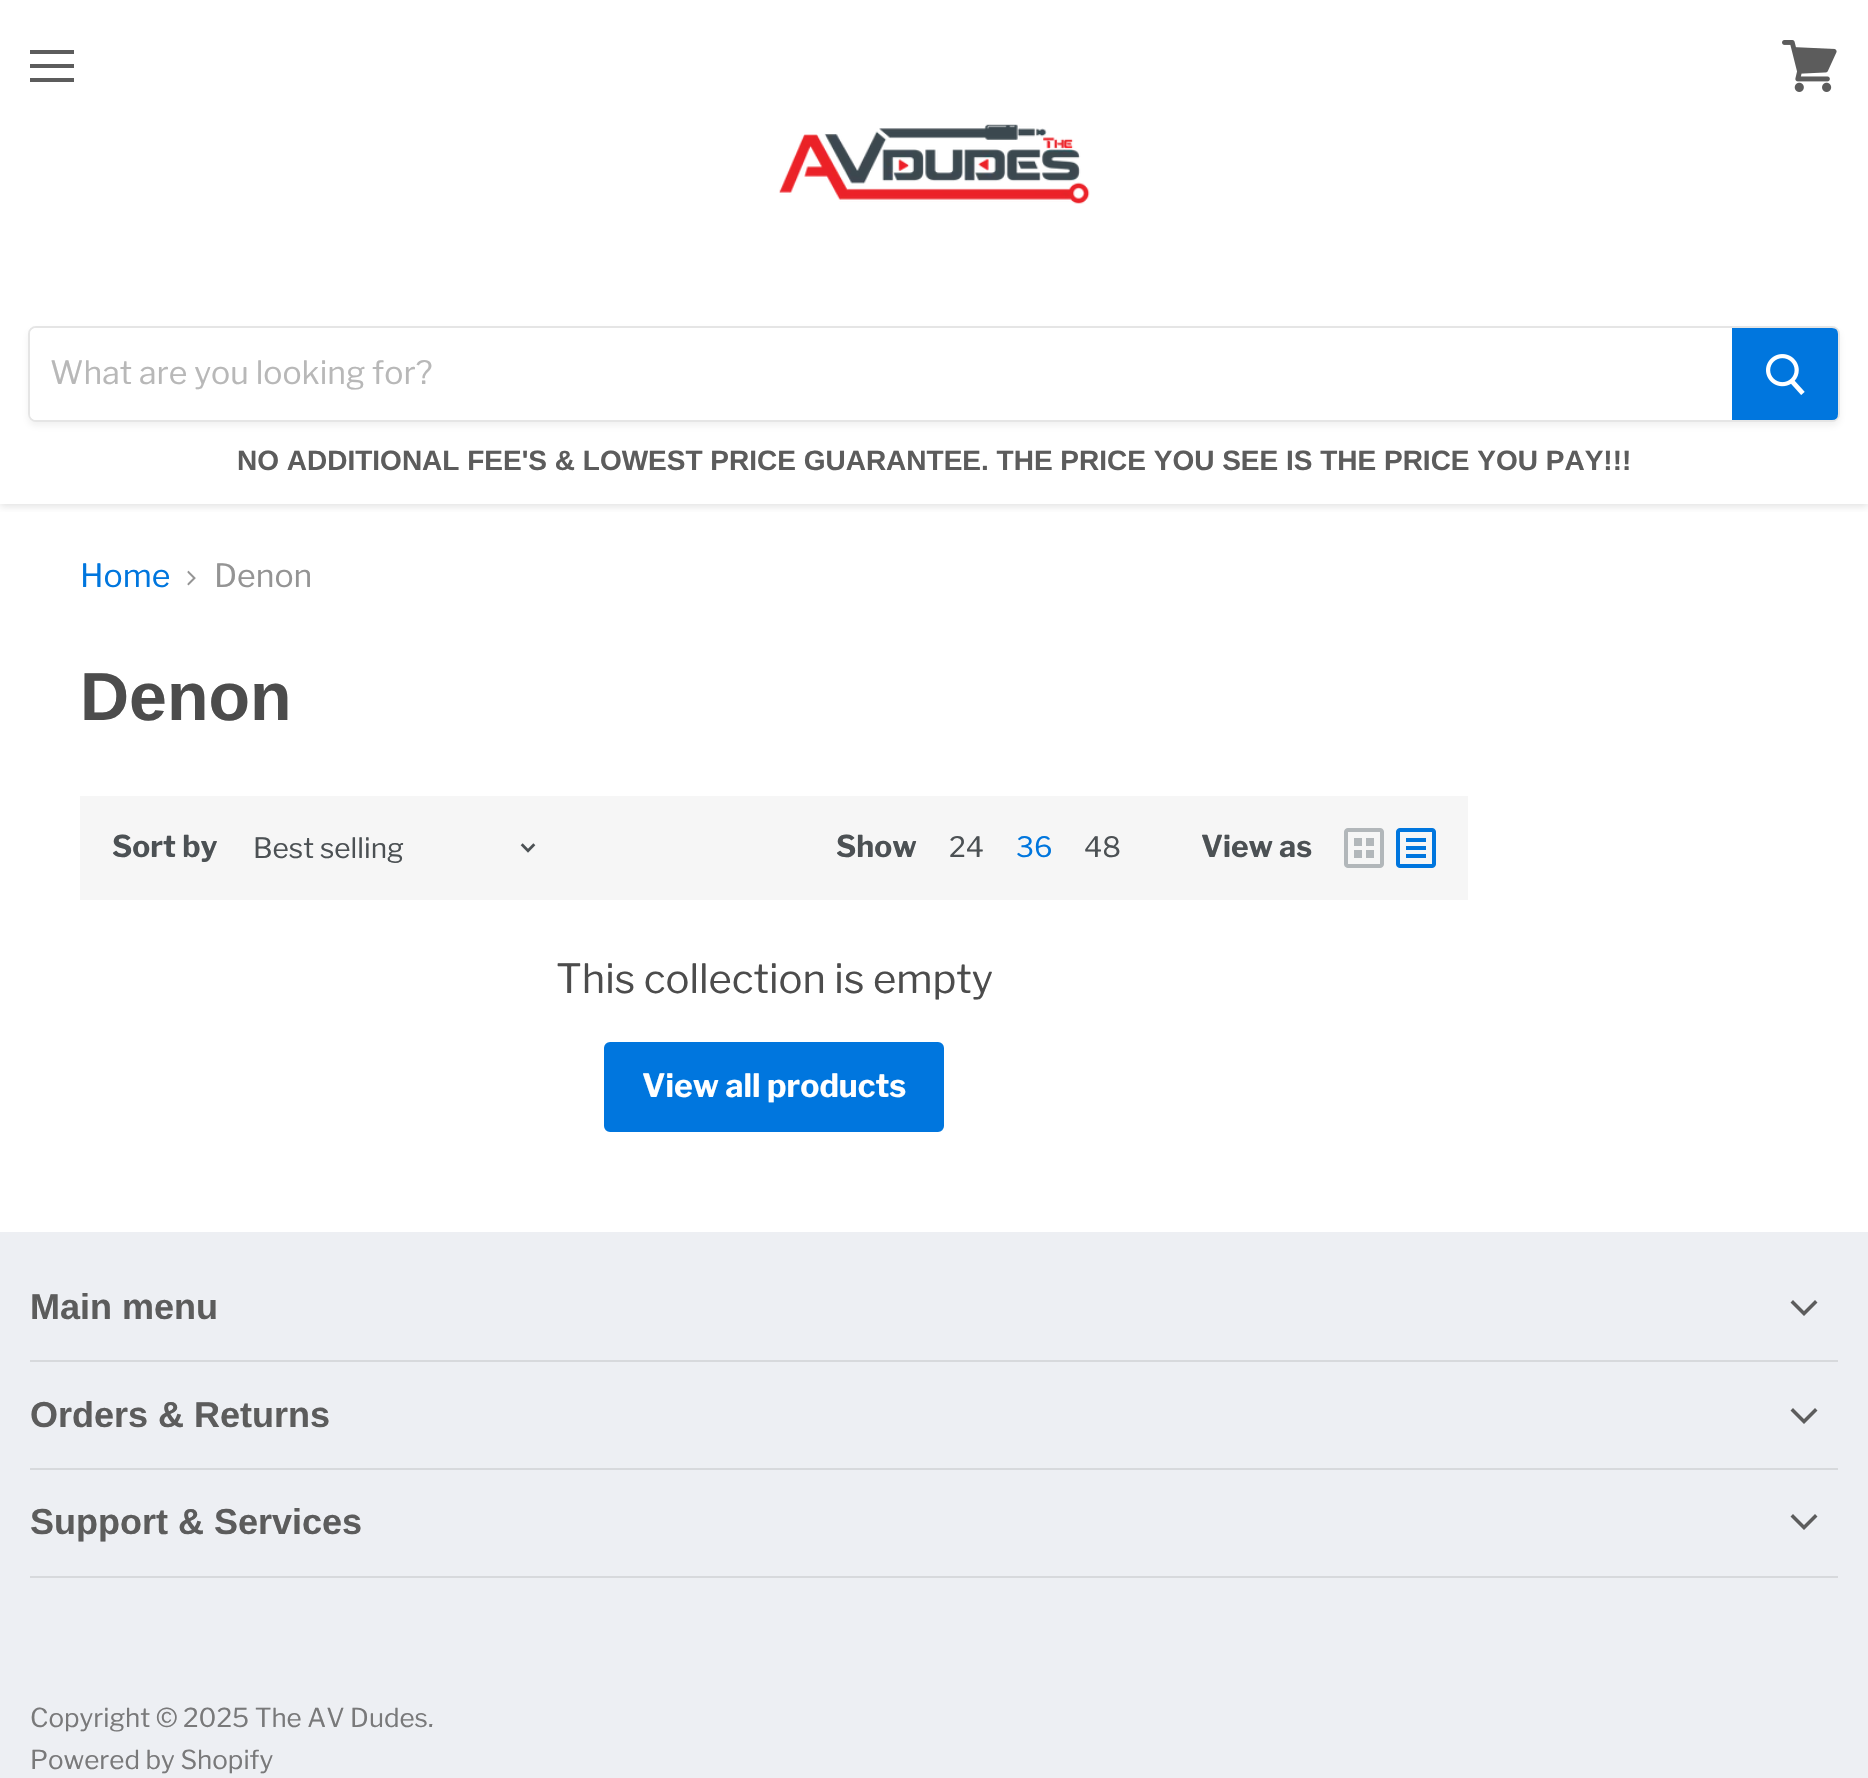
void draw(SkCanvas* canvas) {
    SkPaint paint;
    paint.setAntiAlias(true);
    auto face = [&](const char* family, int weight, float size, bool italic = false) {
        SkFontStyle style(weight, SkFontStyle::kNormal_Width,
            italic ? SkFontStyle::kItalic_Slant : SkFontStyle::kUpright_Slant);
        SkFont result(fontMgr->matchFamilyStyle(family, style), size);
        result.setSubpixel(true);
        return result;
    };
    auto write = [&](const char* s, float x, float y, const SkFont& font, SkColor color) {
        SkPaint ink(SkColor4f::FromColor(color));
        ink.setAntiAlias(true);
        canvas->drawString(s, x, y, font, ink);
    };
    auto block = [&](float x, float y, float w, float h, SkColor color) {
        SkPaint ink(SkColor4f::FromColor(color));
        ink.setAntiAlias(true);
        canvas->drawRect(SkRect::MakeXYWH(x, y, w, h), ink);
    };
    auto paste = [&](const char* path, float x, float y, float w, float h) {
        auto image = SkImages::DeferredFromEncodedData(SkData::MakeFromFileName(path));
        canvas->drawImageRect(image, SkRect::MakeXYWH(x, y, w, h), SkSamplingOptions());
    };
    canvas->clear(SK_ColorWHITE);
    canvas->save();
    canvas->clipRect(SkRect::MakeXYWH(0, 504, 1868, 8));
    paint.setColor(SkColorSetARGB(64, 127, 127, 127));
    paint.setMaskFilter(SkMaskFilter::MakeBlur(kNormal_SkBlurStyle, 4));
    canvas->drawRect(SkRect::MakeXYWH(0, 2, 1868, 504), paint);
    paint.setMaskFilter(nullptr);
    canvas->restore();
    block(30, 50, 44, 4, SkColorSetRGB(92, 92, 92));
    block(30, 64, 44, 4, SkColorSetRGB(92, 92, 92));
    block(30, 78, 44, 4, SkColorSetRGB(92, 92, 92));
    paste("pic1.png", 1782, 40, 55, 52);
    paste("pic2.png", 779, 124, 311, 80);
    canvas->save();
    canvas->clipPath(SkPathBuilder(SkPathFillType::kEvenOdd).moveTo(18, 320).lineTo(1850, 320).lineTo(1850, 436).lineTo(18, 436).close().moveTo(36, 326).lineTo(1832, 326).cubicTo(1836.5f, 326, 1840, 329.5f, 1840, 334).lineTo(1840, 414).cubicTo(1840, 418.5f, 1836.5f, 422, 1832, 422).lineTo(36, 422).cubicTo(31.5f, 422, 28, 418.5f, 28, 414).lineTo(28, 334).cubicTo(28, 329.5f, 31.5f, 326, 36, 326).close().detach(), true);
    paint.setColor(SkColorSetARGB(28, 127, 127, 127));
    paint.setMaskFilter(SkMaskFilter::MakeBlur(kNormal_SkBlurStyle, 3));
    canvas->drawRoundRect(SkRect::MakeXYWH(28, 330, 1812, 96), 8, 8, paint);
    paint.setMaskFilter(nullptr);
    canvas->restore();
    paint.setStyle(SkPaint::kStroke_Style);
    paint.setStrokeWidth(2);
    paint.setColor(SkColorSetARGB(51, 127, 127, 127));
    canvas->drawRoundRect(SkRect::MakeXYWH(29, 327, 1810, 94), 7, 7, paint);
    paint.setStyle(SkPaint::kFill_Style);
    paint.setColor(SK_ColorWHITE);
    canvas->drawPath(SkPathBuilder().moveTo(36, 328).lineTo(1732, 328).lineTo(1732, 420).lineTo(36, 420).cubicTo(32.5f, 420, 30, 417.5f, 30, 414).lineTo(30, 334).cubicTo(30, 330.5f, 32.5f, 328, 36, 328).close().detach(), paint);
    auto kFont1 = face("Libre Franklin", 400, 32);
    write("What are you looking for?", 50, 384, kFont1, SkColorSetRGB(184, 184, 184));
    paint.setColor(SkColorSetRGB(0, 118, 222));
    canvas->drawPath(SkPathBuilder().moveTo(1733, 329).lineTo(1832, 329).cubicTo(1835, 329, 1837, 331, 1837, 334).lineTo(1837, 414).cubicTo(1837, 417, 1835, 419, 1832, 419).lineTo(1733, 419).close().detach(), paint);
    paint.setStyle(SkPaint::kStroke_Style);
    canvas->drawPath(SkPathBuilder().moveTo(1733, 329).lineTo(1832, 329).cubicTo(1835, 329, 1837, 331, 1837, 334).lineTo(1837, 414).cubicTo(1837, 417, 1835, 419, 1832, 419).lineTo(1733, 419).close().detach(), paint);
    paste("pic3.png", 1766, 354, 39, 41);
    auto kFont2 = face("Arimo", 700, 28);
    write("NO ADDITIONAL FEE'S & LOWEST PRICE GUARANTEE. THE PRICE YOU SEE IS THE PRICE YOU PAY!!!", 237, 470, kFont2, SkColorSetRGB(92, 92, 92));
    write("Home", 80, 587, kFont1, SkColorSetRGB(0, 118, 222));
    paste("pic4.png", 187, 570, 9, 16);
    write("Denon", 214, 587, kFont1, SkColorSetRGB(148, 148, 148));
    auto kFont3 = face("Arimo", 700, 68);
    write("Denon", 80, 720, kFont3, SkColorSetRGB(76, 76, 76));
    block(80, 796, 1388, 104, SkColorSetRGB(246, 246, 246));
    auto kFont4 = face("Libre Franklin", 700, 30);
    write("Sort by", 112, 857, kFont4, SkColorSetRGB(76, 81, 84));
    auto kFont5 = face("Libre Franklin", 400, 28);
    write("Best selling", 253, 858, kFont5, SkColorSetRGB(76, 81, 84));
    paste("pic5.png", 520, 843, 16, 10);
    write("Show", 836, 857, kFont4, SkColorSetRGB(76, 81, 84));
    write("24", 949, 857, kFont5, SkColorSetRGB(76, 81, 84));
    write("36", 1016, 857, kFont5, SkColorSetRGB(0, 118, 222));
    write("48", 1084, 857, kFont5, SkColorSetRGB(76, 81, 84));
    write("View as", 1201, 857, kFont4, SkColorSetRGB(76, 81, 84));
    paste("pic6.png", 1344, 828, 40, 40);
    paste("pic7.png", 1396, 828, 40, 40);
    auto kFont6 = face("Libre Franklin", 400, 40);
    write("This collection is empty", 556, 993, kFont6, SkColorSetRGB(76, 76, 76));
    paint.setStyle(SkPaint::kFill_Style);
    canvas->drawRoundRect(SkRect::MakeXYWH(605, 1043, 338, 88), 5, 5, paint);
    paint.setStyle(SkPaint::kStroke_Style);
    canvas->drawRoundRect(SkRect::MakeXYWH(605, 1043, 338, 88), 5, 5, paint);
    auto kFont7 = face("Libre Franklin", 700, 32);
    write("View all products", 642, 1097, kFont7, SK_ColorWHITE);
    block(0, 1232, 1868, 546, SkColorSetRGB(237, 239, 243));
    block(30, 1360, 1808, 2, SkColorSetRGB(215, 217, 220));
    auto kFont8 = face("Arimo", 700, 36);
    write("Main menu", 30, 1319, kFont8, SkColorSetRGB(92, 92, 92));
    paint.setStyle(SkPaint::kFill_Style);
    paint.setColor(SkColorSetRGB(92, 92, 92));
    canvas->drawPath(SkPathBuilder(SkPathFillType::kEvenOdd).moveTo(1804, 1316).lineTo(1817.5f, 1302.5f).lineTo(1815, 1300).lineTo(1804, 1311).close().moveTo(1804, 1311).lineTo(1793, 1300).lineTo(1790.5f, 1302.5f).lineTo(1804, 1316).close().detach(), paint);
    block(30, 1468, 1808, 2, SkColorSetRGB(215, 217, 220));
    write("Orders & Returns", 30, 1427, kFont8, SkColorSetRGB(92, 92, 92));
    canvas->drawPath(SkPathBuilder(SkPathFillType::kEvenOdd).moveTo(1804, 1424).lineTo(1817.5f, 1410.5f).lineTo(1815, 1408).lineTo(1804, 1419).close().moveTo(1804, 1419).lineTo(1793, 1408).lineTo(1790.5f, 1410.5f).lineTo(1804, 1424).close().detach(), paint);
    block(30, 1576, 1808, 2, SkColorSetRGB(215, 217, 220));
    write("Support & Services", 30, 1534, kFont8, SkColorSetRGB(92, 92, 92));
    canvas->drawPath(SkPathBuilder(SkPathFillType::kEvenOdd).moveTo(1804, 1530).lineTo(1817.5f, 1516.5f).lineTo(1815, 1514).lineTo(1804, 1525).close().moveTo(1804, 1525).lineTo(1793, 1514).lineTo(1790.5f, 1516.5f).lineTo(1804, 1530).close().detach(), paint);
    auto kFont9 = face("Libre Franklin", 400, 26);
    write("Copyright © 2025 The AV Dudes.", 30, 1727, kFont9, SkColorSetRGB(121, 121, 122));
    write("Powered by Shopify", 30, 1769, kFont9, SkColorSetRGB(121, 121, 122));
}
